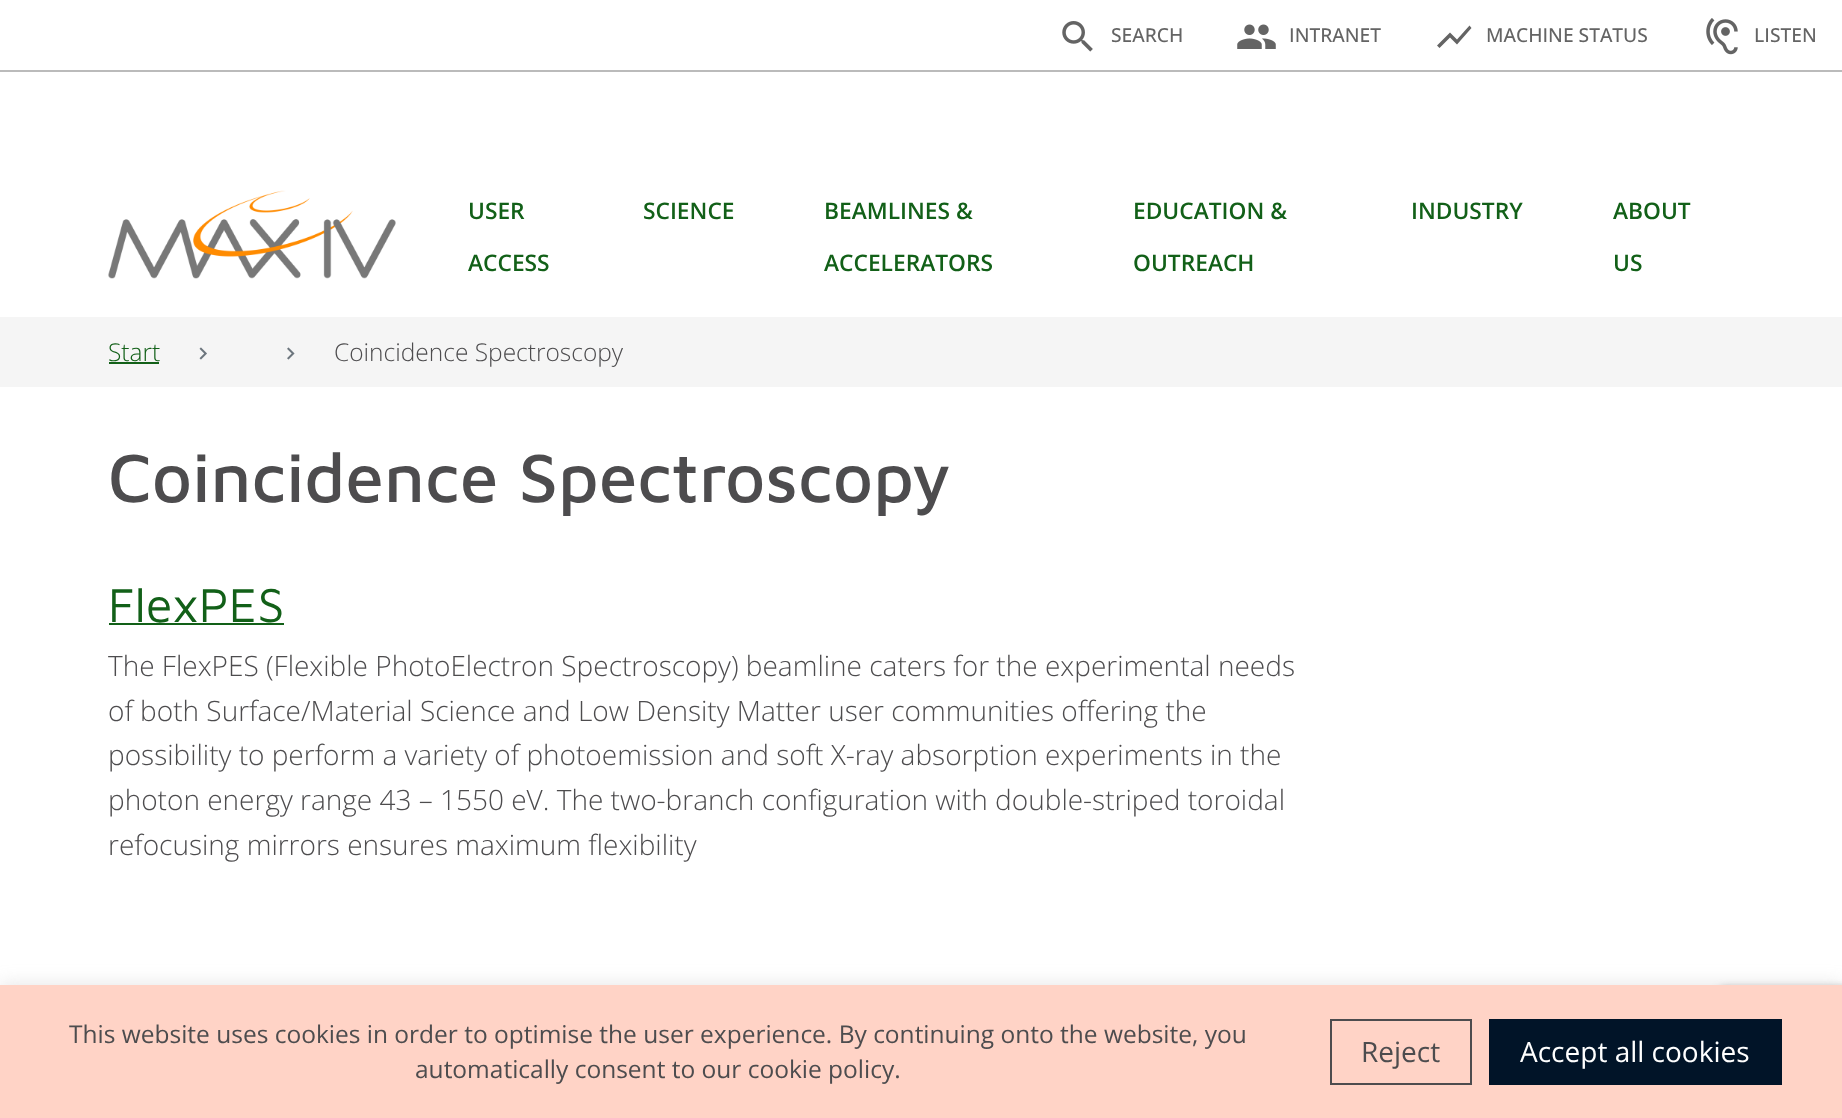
<!DOCTYPE html>
<meta charset="utf-8">
<style>body { margin: 0 } canvas { display: block }</style>
<canvas id="canvas" width="1842" height="1118"></canvas>
<script type="module">
  const canvas = document.getElementById("canvas");
  const g = canvas.getContext("2d");
  g.miterLimit = 4;
  g.fontKerning = "normal";
  function drawText(s, x, y, [font, color]) {
    g.font = font;
    g.fillStyle = color;
    g.fillText(s, x, y);
  }
  function fillBox(x, y, w, h, color) {
    g.fillStyle = color;
    g.fillRect(x, y, w, h);
  }
  async function drawPicture(src, x, y, w, h) {
    const img = new Image();
    img.src = src;
    await img.decode();
    g.drawImage(img, x, y, w, h);
  }

  const s1 = ["500 19.25px Open Sans", "#646464"];
  const s2 = ["600 22.75px Open Sans", "#126018"];
  const s3 = ["300 24.5px Open Sans", "#126018"];
  const s4 = ["300 24.5px Open Sans", "#4D4C4E"];
  const s5 = ["500 70px Maven Pro", "#4D4C4E"];
  const s6 = ["49px Maven Pro", "#126018"];
  const s7 = ["300 28px Open Sans", "#4D4C4E"];
  const s8 = ["24.5px Open Sans", "#4D4C4E"];
  const s9 = ["28px Open Sans", "#4D4C4E"];
  const s10 = ["28px Open Sans", "#FFFFFF"];

  fillBox(0, 0, 1842, 1118, "#FFFFFF");
  fillBox(0, 70, 1842, 2, "#BBBBBB");
  await drawPicture("pic1.png", 1062, 21, 31, 31);
  drawText("SEARCH", 1111, 42, s1);
  await drawPicture("pic2.png", 1237, 24, 39, 25);
  drawText("INTRANET", 1289, 42, s1);
  g.beginPath();
  g.moveTo(1439.5, 48);
  g.lineTo(1450, 37.5);
  g.lineTo(1457, 44.5);
  g.lineTo(1471.5, 28);
  g.lineTo(1469.5, 25.5);
  g.lineTo(1457, 39.5);
  g.lineTo(1450, 32.5);
  g.lineTo(1437, 45.5);
  g.closePath();
  g.fill();
  drawText("MACHINE STATUS", 1486, 42, s1);
  await drawPicture("pic3.png", 1706, 18, 32, 37);
  drawText("LISTEN", 1754, 42, s1);
  await drawPicture("pic4.png", 108, 190, 288, 89);
  drawText("USER", 468, 219, s2);
  drawText("ACCESS", 468, 271, s2);
  drawText("SCIENCE", 643, 219, s2);
  drawText("BEAMLINES &", 824, 219, s2);
  drawText("ACCELERATORS", 824, 271, s2);
  drawText("EDUCATION &", 1133, 219, s2);
  drawText("OUTREACH", 1133, 271, s2);
  drawText("INDUSTRY", 1411, 219, s2);
  drawText("ABOUT", 1613, 219, s2);
  drawText("US", 1613, 271, s2);
  fillBox(0, 317, 1842, 70, "#F5F5F5");
  drawText("Start", 108, 361, s3);
  fillBox(109, 362, 50, 2, "#126018");
  await drawPicture("pic5.png", 199, 347, 8, 13);
  await drawPicture("pic6.png", 287, 347, 8, 13);
  drawText("Coincidence Spectroscopy", 334, 361, s4);
  drawText("Coincidence Spectroscopy", 108, 502, s5);
  drawText("FlexPES", 108, 622, s6);
  fillBox(109, 623, 175, 2, "#126018");
  drawText("The FlexPES (Flexible PhotoElectron Spectroscopy) beamline caters for the experimental needs", 108, 676, s7);
  drawText("of both Surface/Material Science and Low Density Matter user communities offering the", 108, 721, s7);
  drawText("possibility to perform a variety of photoemission and soft X-ray absorption experiments in the", 108, 765, s7);
  drawText("photon energy range 43 – 1550 eV. The two-branch configuration with double-striped toroidal", 108, 810, s7);
  drawText("refocusing mirrors ensures maximum flexibility", 108, 855, s7);
  g.fillStyle = "rgba(172, 171, 171, 0.3)";
  g.filter = "blur(9px)";
  g.beginPath();
  g.rect(0, 984, 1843, 133);
  g.fill();
  g.filter = "none";
  g.fillStyle = "#808080";
  g.filter = "blur(4.5px)";
  g.beginPath();
  g.roundRect(1720, 989, 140, 105, 4);
  g.fill();
  g.filter = "none";
  fillBox(0, 985, 1842, 133, "#FFD3C6");
  drawText("This website uses cookies in order to optimise the user experience. By continuing onto the website, you", 69, 1043, s8);
  drawText("automatically consent to our cookie policy.", 415, 1078, s8);
  g.strokeStyle = "#4D4C4E";
  g.lineWidth = 2;
  g.strokeRect(1331, 1020, 140, 64);
  drawText("Reject", 1361, 1062, s9);
  fillBox(1489, 1019, 293, 66, "#011428");
  drawText("Accept all cookies", 1520, 1062, s10);
</script>
